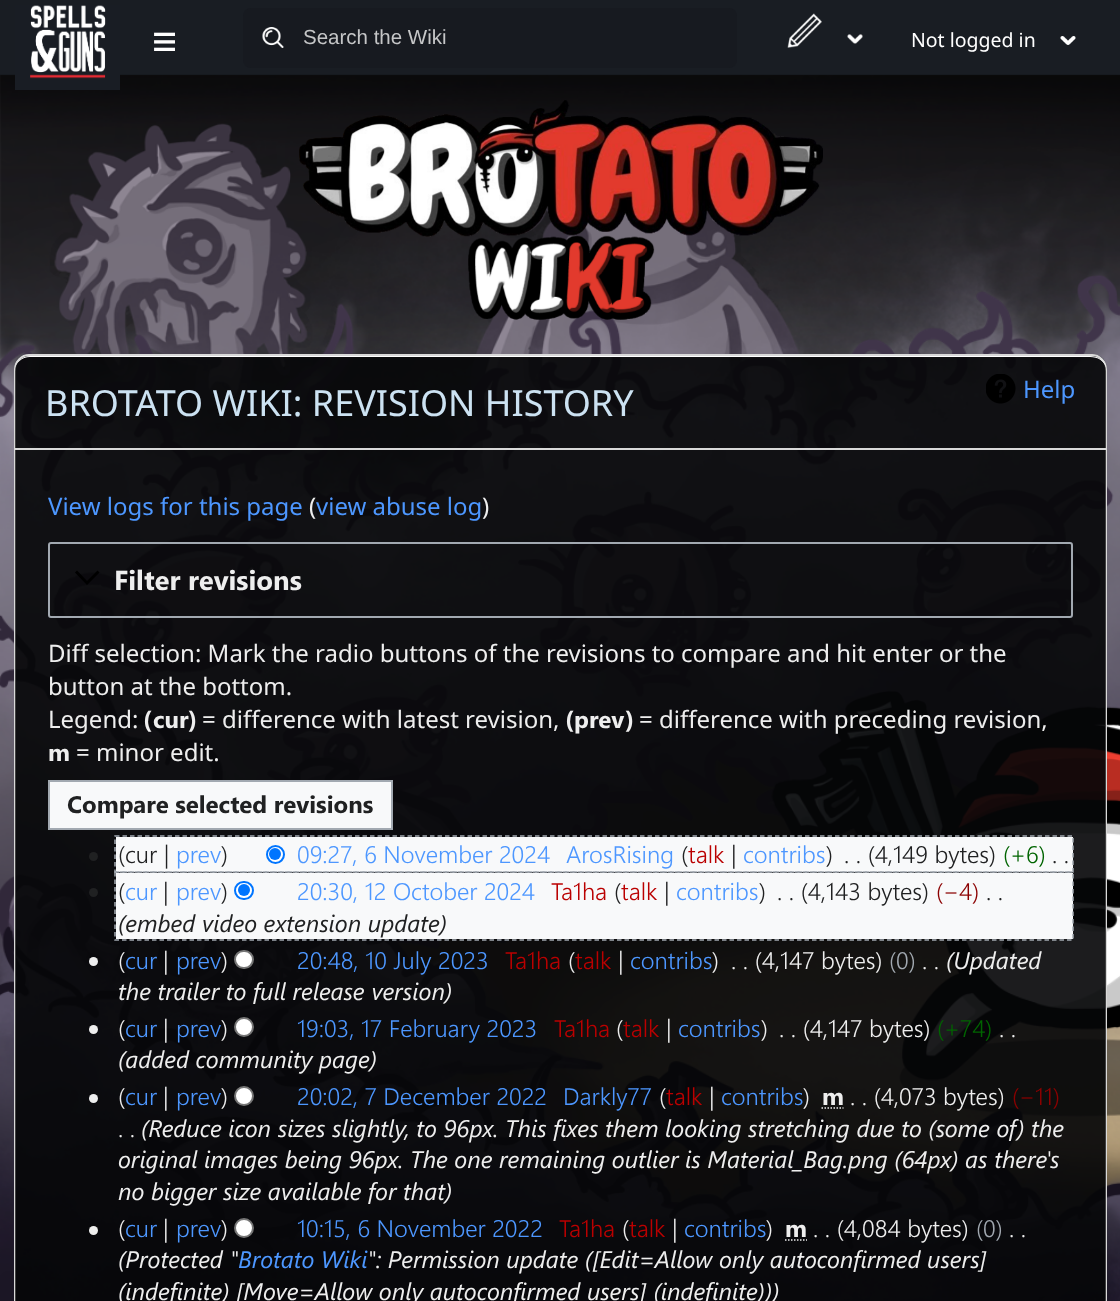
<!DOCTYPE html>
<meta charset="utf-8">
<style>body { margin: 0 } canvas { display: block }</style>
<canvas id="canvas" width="1120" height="1301"></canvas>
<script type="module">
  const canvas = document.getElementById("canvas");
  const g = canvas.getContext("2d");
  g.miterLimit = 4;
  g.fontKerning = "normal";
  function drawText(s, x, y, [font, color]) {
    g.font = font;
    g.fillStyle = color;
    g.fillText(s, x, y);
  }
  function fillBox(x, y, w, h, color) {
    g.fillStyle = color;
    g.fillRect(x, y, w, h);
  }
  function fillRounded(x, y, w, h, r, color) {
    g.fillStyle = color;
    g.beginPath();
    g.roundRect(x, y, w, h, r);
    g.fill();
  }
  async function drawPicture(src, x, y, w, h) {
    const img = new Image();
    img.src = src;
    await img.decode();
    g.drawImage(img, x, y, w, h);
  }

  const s1 = ["bold 43px Liberation Sans", "#FFFFFF"];
  const s2 = ["20.5px Liberation Sans", "#C5C6C7"];
  const s3 = ["19.5px Noto Sans", "#FFFFFF"];
  const s4 = ["36px Noto Sans", "#CCE2F2"];
  const s5 = ["24px Noto Sans", "#4D97FF"];
  const s6 = ["24px Noto Sans", "#EEEEEE"];
  const s7 = ["bold 27.5px Segoe UI", "#EEEEEE"];
  const s8 = ["bold 24px Noto Sans", "#EEEEEE"];
  const s9 = ["bold 24px Segoe UI", "#EEEEEE"];
  const s10 = ["bold 24px Segoe UI", "#202122"];
  const s11 = ["300 24px Segoe UI", "#202122"];
  const s12 = ["300 24px Segoe UI", "#4D97FF"];
  const s13 = ["300 24px Segoe UI", "#BA0000"];
  const s14 = ["300 24px Segoe UI", "#006400"];
  const s15 = ["300 24px Segoe UI", "#8B0000"];
  const s16 = ["italic 24px Segoe UI", "#202122"];
  const s17 = ["300 24px Segoe UI", "#EEEEEE"];
  const s18 = ["300 24px Segoe UI", "#A2A9B1"];
  const s19 = ["italic 24px Segoe UI", "#EEEEEE"];
  const s20 = ["italic 24px Segoe UI", "#4D97FF"];

  fillBox(0, 0, 1120, 1301, "#191D23");
  fillBox(0, 74, 1120, 1, "rgba(0, 0, 0, 0.1)");
  await drawPicture("pic6.png", 0, 75, 1120, 1226);
  await drawPicture("pic1.png", 15, 5, 105, 85);
  drawText("≡", 152, 56, s1);
  fillRounded(243, 8, 494, 60, 8, "#171A20");
  await drawPicture("pic2.png", 262, 27, 22, 21);
  drawText("Search the Wiki", 303, 44, s2);
  await drawPicture("pic3.png", 787, 13, 35, 35);
  await drawPicture("pic4.png", 847, 34, 16, 10);
  drawText("Not logged in", 911, 47, s3);
  await drawPicture("pic5.png", 1060, 36, 16, 9);
  await drawPicture("pic7.png", 299, 100, 524, 220);
  g.fillStyle = "rgba(25, 29, 36, 0.7)";
  g.beginPath();
  g.moveTo(29, 354);
  g.lineTo(1092, 354);
  g.bezierCurveTo(1100.5, 354, 1107, 360.5, 1107, 369);
  g.lineTo(1107, 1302);
  g.lineTo(14, 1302);
  g.lineTo(14, 369);
  g.bezierCurveTo(14, 360.5, 20.5, 354, 29, 354);
  g.closePath();
  g.fill();
  g.beginPath();
  g.moveTo(29, 355);
  g.lineTo(1092, 355);
  g.bezierCurveTo(1099.5, 355, 1106, 361.5, 1106, 369);
  g.lineTo(1106, 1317);
  g.lineTo(15, 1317);
  g.lineTo(15, 369);
  g.bezierCurveTo(15, 361.5, 21.5, 355, 29, 355);
  g.closePath();
  g.strokeStyle = "#D9D9D9";
  g.lineWidth = 2;
  g.stroke();
  g.fillStyle = "rgba(0, 0, 0, 0.7)";
  g.beginPath();
  g.roundRect(15, 356, 1091, 94, [15, 15, 0, 0]);
  g.fill();
  g.fillStyle = "#FFFFFF";
  g.beginPath();
  g.moveTo(30, 356);
  g.lineTo(1090, 356);
  g.bezierCurveTo(1098, 356, 1104, 360, 1106, 366);
  g.lineTo(1106, 367);
  g.bezierCurveTo(1104, 361, 1098, 357, 1090, 357);
  g.lineTo(30, 357);
  g.bezierCurveTo(22, 357, 15, 363, 15, 370);
  g.bezierCurveTo(15, 362, 22, 356, 30, 356);
  g.closePath();
  g.fill();
  fillBox(15, 448, 1091, 2, "#D9D9D9");
  drawText("BROTATO WIKI: REVISION HISTORY", 45, 416, s4);
  await drawPicture("pic8.png", 986, 374, 30, 30);
  drawText("Help", 1023, 398, s5);
  fillBox(15, 450, 1091, 851, "rgba(0, 0, 0, 0.7)");
  drawText("View logs for this page", 48, 515, s5);
  drawText("(", 309, 515, s6);
  drawText("view abuse log", 316, 515, s5);
  drawText(")", 482, 515, s6);
  g.beginPath();
  g.roundRect(49, 543, 1023, 74, 2);
  g.strokeStyle = "#A2A9B1";
  g.stroke();
  g.fillStyle = "#000000";
  g.beginPath();
  g.moveTo(97.5, 570.5);
  g.lineTo(87, 581);
  g.lineTo(77, 570.5);
  g.lineTo(75, 572.5);
  g.lineTo(87, 585);
  g.lineTo(99.5, 572.5);
  g.closePath();
  g.fill();
  drawText("Filter revisions", 114, 590, s7);
  drawText("Diff selection: Mark the radio buttons of the revisions to compare and hit enter or the", 48, 662, s6);
  drawText("button at the bottom.", 48, 695, s6);
  drawText("Legend:", 48, 728, s6);
  drawText("(", 144, 728, s8);
  drawText("cur", 153, 728, s9);
  drawText(")", 188, 728, s8);
  drawText("= difference with latest revision,", 202, 728, s6);
  drawText("(", 566, 728, s8);
  drawText("prev", 574, 728, s9);
  drawText(")", 625, 728, s8);
  drawText("= difference with preceding revision,", 639, 728, s6);
  drawText("m", 48, 761, s9);
  drawText("= minor edit.", 76, 761, s6);
  g.fillStyle = "#F8F9FA";
  g.beginPath();
  g.rect(49, 781, 343, 48);
  g.fill();
  g.stroke();
  drawText("Compare selected revisions", 67, 813, s10);
  fillBox(116, 837, 957, 35, "#F8F9FA");
  drawText("(cur |", 118, 863, s11);
  drawText("prev", 176, 863, s12);
  drawText(")", 221, 863, s11);
  g.fillStyle = "#FFFFFF";
  g.beginPath();
  g.arc(275.5, 854.5, 8.5, 0, Math.PI * 2);
  g.fill();
  g.strokeStyle = "#0075FF";
  g.stroke();
  g.fillStyle = "#0075FF";
  g.beginPath();
  g.arc(275, 854, 6, 0, Math.PI * 2);
  g.fill();
  drawText("09:27, 6 November 2024", 297, 863, s12);
  drawText("ArosRising", 566, 863, s12);
  drawText("(", 681, 863, s11);
  drawText("talk", 688, 863, s13);
  drawText("|", 731, 863, s11);
  drawText("contribs", 743, 863, s12);
  drawText(")", 826, 863, s11);
  drawText(". . (4,149 bytes)", 844, 863, s11);
  drawText("(+6)", 1003, 863, s14);
  drawText(". .", 1052, 863, s11);
  g.beginPath();
  g.moveTo(115, 836);
  g.lineTo(1073, 836);
  g.lineTo(1073, 872);
  g.lineTo(115, 872);
  g.closePath();
  g.strokeStyle = "#A2A9B1";
  g.lineWidth = 1.5;
  g.setLineDash([4.5, 3]);
  g.stroke();
  g.beginPath();
  g.arc(93.5, 856.5, 4.5, 0, Math.PI * 2);
  g.fill();
  fillBox(116, 873, 957, 66, "#F8F9FA");
  drawText("(", 118, 900, s11);
  drawText("cur", 125, 900, s12);
  drawText("|", 163, 900, s11);
  drawText("prev", 176, 900, s12);
  drawText(")", 221, 900, s11);
  g.fillStyle = "#FFFFFF";
  g.beginPath();
  g.roundRect(235, 882, 18, 17, 8.5);
  g.fill();
  g.strokeStyle = "#0075FF";
  g.lineWidth = 2;
  g.setLineDash([]);
  g.stroke();
  g.fillStyle = "#0075FF";
  g.beginPath();
  g.arc(244, 890, 6, 0, Math.PI * 2);
  g.fill();
  drawText("20:30, 12 October 2024", 297, 900, s12);
  drawText("Ta1ha", 551, 900, s13);
  drawText("(", 614, 900, s11);
  drawText("talk", 621, 900, s13);
  drawText("|", 664, 900, s11);
  drawText("contribs", 676, 900, s12);
  drawText(")", 759, 900, s11);
  drawText(". . (4,143 bytes)", 777, 900, s11);
  drawText("(−4)", 936, 900, s15);
  drawText(". .", 986, 900, s11);
  drawText("(embed video extension update)", 118, 932, s16);
  g.beginPath();
  g.moveTo(115, 872);
  g.lineTo(1073, 872);
  g.lineTo(1073, 940);
  g.lineTo(115, 940);
  g.closePath();
  g.strokeStyle = "#A2A9B1";
  g.lineWidth = 1.5;
  g.setLineDash([4.5, 3]);
  g.stroke();
  g.beginPath();
  g.arc(93.5, 892.5, 4.5, 0, Math.PI * 2);
  g.fill();
  g.fillStyle = "#EEEEEE";
  g.beginPath();
  g.arc(93.5, 961.5, 4.5, 0, Math.PI * 2);
  g.fill();
  drawText("(", 118, 969, s17);
  drawText("cur", 125, 969, s12);
  drawText("|", 163, 969, s17);
  drawText("prev", 176, 969, s12);
  drawText(")", 221, 969, s17);
  g.fillStyle = "#FFFFFF";
  g.beginPath();
  g.roundRect(235, 951, 18, 17, 8.5);
  g.fill();
  g.strokeStyle = "#767676";
  g.lineWidth = 2;
  g.setLineDash([]);
  g.stroke();
  drawText("20:48, 10 July 2023", 297, 969, s12);
  drawText("Ta1ha", 505, 969, s13);
  drawText("(", 568, 969, s17);
  drawText("talk", 575, 969, s13);
  drawText("|", 618, 969, s17);
  drawText("contribs", 630, 969, s12);
  drawText(")", 712, 969, s17);
  drawText(". . (4,147 bytes)", 731, 969, s17);
  drawText("(0)", 889, 969, s18);
  drawText("(Updated", 946, 969, s19);
  drawText(". .", 922, 969, s17);
  drawText("the trailer to full release version)", 118, 1000, s19);
  g.beginPath();
  g.arc(93.5, 1029.5, 4.5, 0, Math.PI * 2);
  g.fill();
  drawText("(", 118, 1037, s17);
  drawText("cur", 125, 1037, s12);
  drawText("|", 163, 1037, s17);
  drawText("prev", 176, 1037, s12);
  drawText(")", 221, 1037, s17);
  g.fillStyle = "#FFFFFF";
  g.beginPath();
  g.arc(244, 1027, 9, 0, Math.PI * 2);
  g.fill();
  g.stroke();
  drawText("19:03, 17 February 2023", 297, 1037, s12);
  drawText("Ta1ha", 554, 1037, s13);
  drawText("(", 616, 1037, s17);
  drawText("talk", 623, 1037, s13);
  drawText("|", 666, 1037, s17);
  drawText("contribs", 678, 1037, s12);
  drawText(")", 761, 1037, s17);
  drawText(". . (4,147 bytes)", 779, 1037, s17);
  drawText("(+74)", 937, 1037, s14);
  drawText(". .", 999, 1037, s17);
  drawText("(added community page)", 118, 1068, s19);
  g.beginPath();
  g.arc(93.5, 1098.5, 4.5, 0, Math.PI * 2);
  g.fill();
  drawText("(", 118, 1105, s17);
  drawText("cur", 125, 1105, s12);
  drawText("|", 163, 1105, s17);
  drawText("prev", 176, 1105, s12);
  drawText(")", 221, 1105, s17);
  g.fillStyle = "#FFFFFF";
  g.beginPath();
  g.arc(244, 1096, 9, 0, Math.PI * 2);
  g.fill();
  g.stroke();
  drawText("20:02, 7 December 2022", 297, 1105, s12);
  drawText("Darkly77", 563, 1105, s12);
  drawText("(", 659, 1105, s17);
  drawText("talk", 666, 1105, s13);
  drawText("|", 709, 1105, s17);
  drawText("contribs", 721, 1105, s12);
  drawText(")", 803, 1105, s17);
  drawText("m", 822, 1105, s9);
  g.beginPath();
  g.moveTo(821.5, 1108);
  g.lineTo(843.5, 1108);
  g.strokeStyle = "#EEEEEE";
  g.lineWidth = 1.5;
  g.setLineDash([1.5, 1.5]);
  g.stroke();
  drawText(". . (4,073 bytes)", 850, 1105, s17);
  drawText("(−11)", 1012, 1105, s15);
  drawText(". .", 118, 1137, s17);
  drawText("(Reduce icon sizes slightly, to 96px. This fixes them looking stretching due to (some of) the", 141, 1137, s19);
  drawText("original images being 96px. The one remaining outlier is Material_Bag.png (64px) as there's", 118, 1168, s19);
  drawText("no bigger size available for that)", 118, 1200, s19);
  g.beginPath();
  g.arc(93.5, 1230.5, 4.5, 0, Math.PI * 2);
  g.fill();
  drawText("(", 118, 1237, s17);
  drawText("cur", 125, 1237, s12);
  drawText("|", 163, 1237, s17);
  drawText("prev", 176, 1237, s12);
  drawText(")", 221, 1237, s17);
  g.fillStyle = "#FFFFFF";
  g.beginPath();
  g.arc(244, 1228, 9, 0, Math.PI * 2);
  g.fill();
  g.strokeStyle = "#767676";
  g.lineWidth = 2;
  g.setLineDash([]);
  g.stroke();
  drawText("10:15, 6 November 2022", 297, 1237, s12);
  drawText("Ta1ha", 559, 1237, s13);
  drawText("(", 622, 1237, s17);
  drawText("talk", 629, 1237, s13);
  drawText("|", 672, 1237, s17);
  drawText("contribs", 684, 1237, s12);
  drawText(")", 766, 1237, s17);
  drawText("m", 785, 1237, s9);
  g.beginPath();
  g.moveTo(785, 1240);
  g.lineTo(807, 1240);
  g.strokeStyle = "#EEEEEE";
  g.lineWidth = 1.5;
  g.setLineDash([1.5, 1.5]);
  g.stroke();
  drawText(". . (4,084 bytes)", 813, 1237, s17);
  drawText("(0)", 976, 1237, s18);
  drawText(". .", 1009, 1237, s17);
  drawText("(Protected \"", 118, 1268, s19);
  drawText("Brotato Wiki", 238, 1268, s20);
  drawText("\": Permission update ([Edit=Allow only autoconfirmed users]", 367, 1268, s19);
  drawText("(indefinite) [Move=Allow only autoconfirmed users] (indefinite)))", 118, 1300, s19);
</script>
